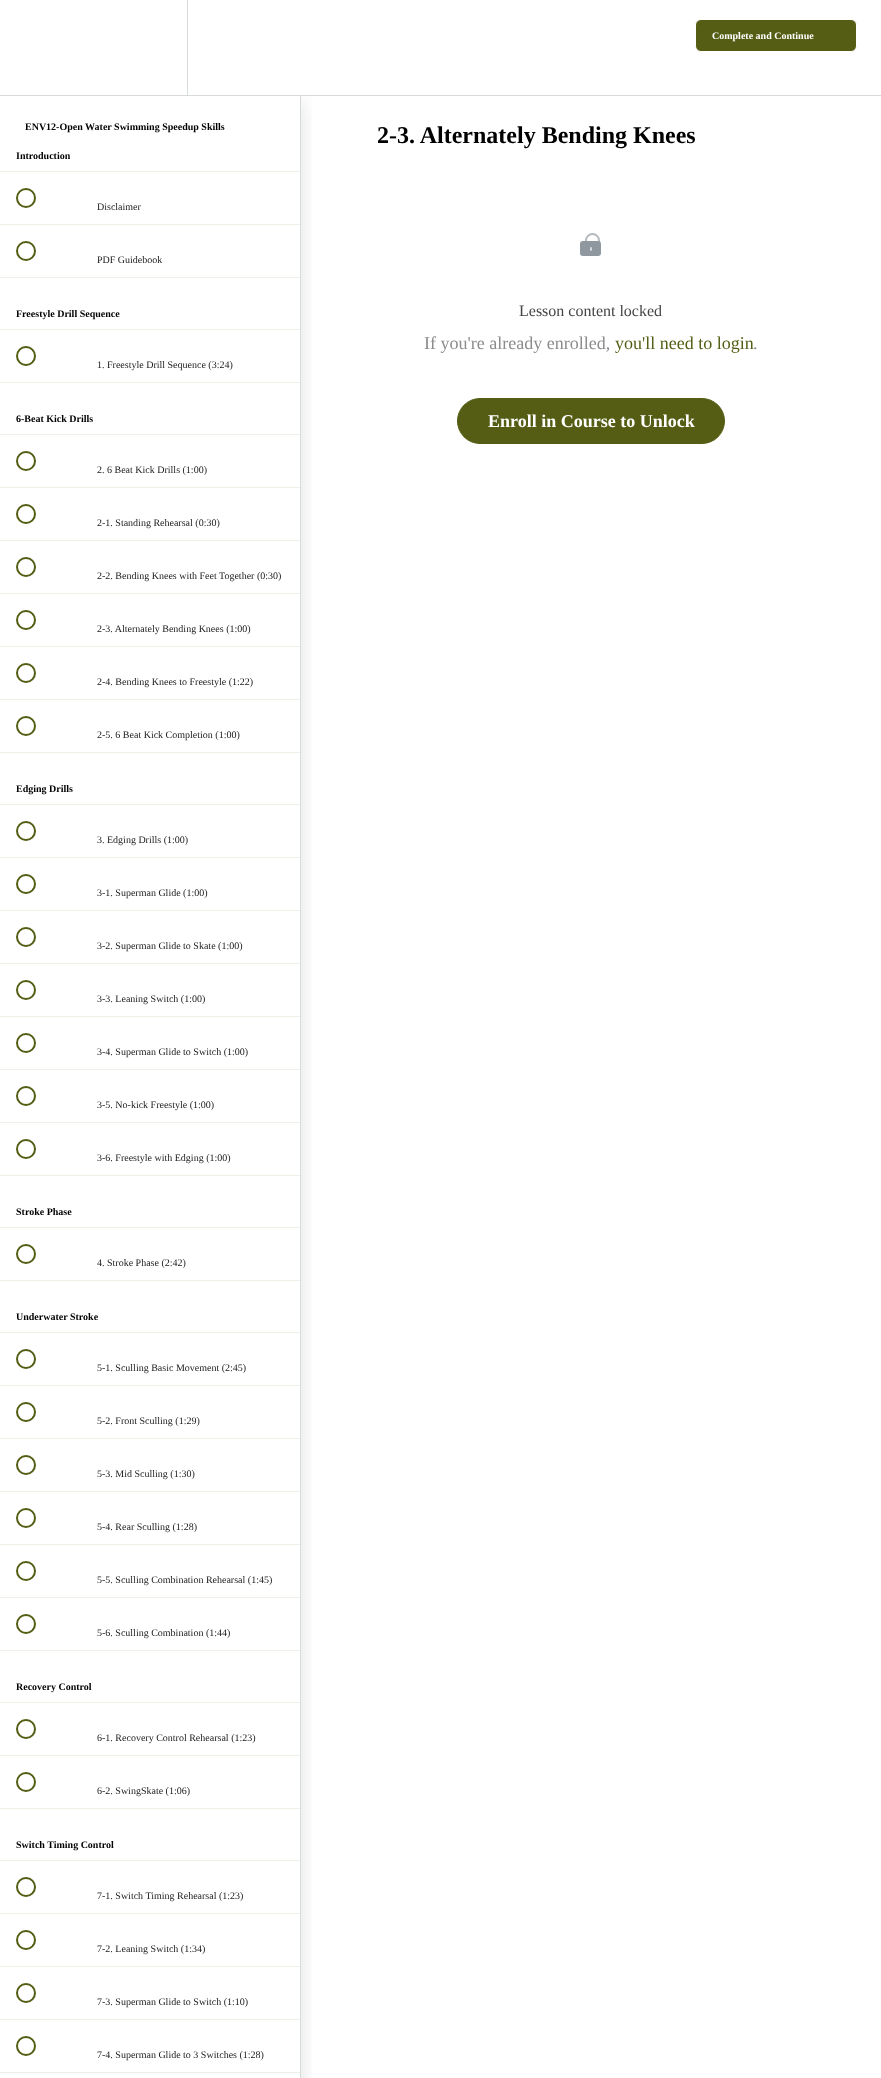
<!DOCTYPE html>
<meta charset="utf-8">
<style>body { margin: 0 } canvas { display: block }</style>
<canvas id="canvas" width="881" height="2078"></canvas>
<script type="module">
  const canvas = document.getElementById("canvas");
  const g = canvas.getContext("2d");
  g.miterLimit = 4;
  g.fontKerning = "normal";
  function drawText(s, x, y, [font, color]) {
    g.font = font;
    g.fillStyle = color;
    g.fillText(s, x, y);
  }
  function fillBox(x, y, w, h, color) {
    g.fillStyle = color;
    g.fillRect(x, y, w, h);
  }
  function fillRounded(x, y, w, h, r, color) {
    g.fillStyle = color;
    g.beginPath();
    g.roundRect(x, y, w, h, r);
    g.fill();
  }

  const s1 = ["bold 10px Liberation Serif", "#FFFFFF"];
  const s2 = ["bold 10px Liberation Serif", "#000000"];
  const s3 = ["10px Liberation Serif", "#1A1A1A"];
  const s4 = ["bold 24px Liberation Serif", "#000000"];
  const s5 = ["16px Liberation Serif", "#454545"];
  const s6 = ["18px Liberation Serif", "#8B8B8B"];
  const s7 = ["18px Liberation Serif", "#545D13"];
  const s8 = ["bold 18px Liberation Serif", "#FFFFFF"];

  fillBox(0, 0, 881, 2078, "#FFFFFF");
  g.save();
  g.beginPath();
  g.rect(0, 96, 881, 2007);
  g.clip();
  g.beginPath();
  g.rect(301, 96, 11, 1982);
  g.clip();
  g.fillStyle = "rgba(32, 39, 45, 0.15)";
  g.filter = "blur(10px)";
  g.beginPath();
  g.rect(0, 102, 301, 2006);
  g.fill();
  g.filter = "none";
  g.restore();
  fillBox(0, 95, 881, 1, "#D7DADB");
  fillBox(187, 0, 1, 95, "#D7DADB");
  g.fillStyle = "#545D13";
  g.beginPath();
  g.roundRect(695.5, 19.5, 161, 32, 5.5);
  g.fill();
  g.strokeStyle = "#FFFFFF";
  g.stroke();
  drawText("Complete and Continue", 712, 39, s1);
  fillBox(300, 96, 1, 1982, "#D7DADB");
  drawText("ENV12-Open Water Swimming Speedup Skills", 25, 130, s2);
  fillBox(0, 171, 300, 1, "#EEEFE7");
  drawText("Introduction", 16, 159, s2);
  fillBox(0, 224, 300, 1, "#EEEFE7");
  g.beginPath();
  g.arc(26, 198, 9, 0, Math.PI * 2);
  g.strokeStyle = "#545D13";
  g.lineWidth = 2;
  g.stroke();
  drawText("Disclaimer", 97, 210, s3);
  fillBox(0, 277, 300, 1, "#EEEFE7");
  g.beginPath();
  g.arc(26, 251, 9, 0, Math.PI * 2);
  g.stroke();
  drawText("PDF Guidebook", 97, 263, s3);
  fillBox(0, 329, 300, 1, "#EEEFE7");
  drawText("Freestyle Drill Sequence", 16, 317, s2);
  fillBox(0, 382, 300, 1, "#EEEFE7");
  g.beginPath();
  g.arc(26, 356, 9, 0, Math.PI * 2);
  g.stroke();
  drawText("1. Freestyle Drill Sequence (3:24)", 97, 368, s3);
  fillBox(0, 434, 300, 1, "#EEEFE7");
  drawText("6-Beat Kick Drills", 16, 422, s2);
  fillBox(0, 487, 300, 1, "#EEEFE7");
  g.beginPath();
  g.arc(26, 461, 9, 0, Math.PI * 2);
  g.stroke();
  drawText("2. 6 Beat Kick Drills (1:00)", 97, 473, s3);
  fillBox(0, 540, 300, 1, "#EEEFE7");
  g.beginPath();
  g.arc(26, 514, 9, 0, Math.PI * 2);
  g.stroke();
  drawText("2-1. Standing Rehearsal (0:30)", 97, 526, s3);
  fillBox(0, 593, 300, 1, "#EEEFE7");
  g.beginPath();
  g.arc(26, 567, 9, 0, Math.PI * 2);
  g.stroke();
  drawText("2-2. Bending Knees with Feet Together (0:30)", 97, 579, s3);
  fillBox(0, 646, 300, 1, "#EEEFE7");
  g.beginPath();
  g.arc(26, 620, 9, 0, Math.PI * 2);
  g.stroke();
  drawText("2-3. Alternately Bending Knees (1:00)", 97, 632, s3);
  fillBox(0, 699, 300, 1, "#EEEFE7");
  g.beginPath();
  g.arc(26, 673, 9, 0, Math.PI * 2);
  g.stroke();
  drawText("2-4. Bending Knees to Freestyle (1:22)", 97, 685, s3);
  fillBox(0, 752, 300, 1, "#EEEFE7");
  g.beginPath();
  g.arc(26, 726, 9, 0, Math.PI * 2);
  g.stroke();
  drawText("2-5. 6 Beat Kick Completion (1:00)", 97, 738, s3);
  fillBox(0, 804, 300, 1, "#EEEFE7");
  drawText("Edging Drills", 16, 792, s2);
  fillBox(0, 857, 300, 1, "#EEEFE7");
  g.beginPath();
  g.arc(26, 831, 9, 0, Math.PI * 2);
  g.stroke();
  drawText("3. Edging Drills (1:00)", 97, 843, s3);
  fillBox(0, 910, 300, 1, "#EEEFE7");
  g.beginPath();
  g.arc(26, 884, 9, 0, Math.PI * 2);
  g.stroke();
  drawText("3-1. Superman Glide (1:00)", 97, 896, s3);
  fillBox(0, 963, 300, 1, "#EEEFE7");
  g.beginPath();
  g.arc(26, 937, 9, 0, Math.PI * 2);
  g.stroke();
  drawText("3-2. Superman Glide to Skate (1:00)", 97, 949, s3);
  fillBox(0, 1016, 300, 1, "#EEEFE7");
  g.beginPath();
  g.arc(26, 990, 9, 0, Math.PI * 2);
  g.stroke();
  drawText("3-3. Leaning Switch (1:00)", 97, 1002, s3);
  fillBox(0, 1069, 300, 1, "#EEEFE7");
  g.beginPath();
  g.arc(26, 1043, 9, 0, Math.PI * 2);
  g.stroke();
  drawText("3-4. Superman Glide to Switch (1:00)", 97, 1055, s3);
  fillBox(0, 1122, 300, 1, "#EEEFE7");
  g.beginPath();
  g.arc(26, 1096, 9, 0, Math.PI * 2);
  g.stroke();
  drawText("3-5. No-kick Freestyle (1:00)", 97, 1108, s3);
  fillBox(0, 1175, 300, 1, "#EEEFE7");
  g.beginPath();
  g.arc(26, 1149, 9, 0, Math.PI * 2);
  g.stroke();
  drawText("3-6. Freestyle with Edging (1:00)", 97, 1161, s3);
  fillBox(0, 1227, 300, 1, "#EEEFE7");
  drawText("Stroke Phase", 16, 1215, s2);
  fillBox(0, 1280, 300, 1, "#EEEFE7");
  g.beginPath();
  g.arc(26, 1254, 9, 0, Math.PI * 2);
  g.stroke();
  drawText("4. Stroke Phase (2:42)", 97, 1266, s3);
  fillBox(0, 1332, 300, 1, "#EEEFE7");
  drawText("Underwater Stroke", 16, 1320, s2);
  fillBox(0, 1385, 300, 1, "#EEEFE7");
  g.beginPath();
  g.arc(26, 1359, 9, 0, Math.PI * 2);
  g.stroke();
  drawText("5-1. Sculling Basic Movement (2:45)", 97, 1371, s3);
  fillBox(0, 1438, 300, 1, "#EEEFE7");
  g.beginPath();
  g.arc(26, 1412, 9, 0, Math.PI * 2);
  g.stroke();
  drawText("5-2. Front Sculling (1:29)", 97, 1424, s3);
  fillBox(0, 1491, 300, 1, "#EEEFE7");
  g.beginPath();
  g.arc(26, 1465, 9, 0, Math.PI * 2);
  g.stroke();
  drawText("5-3. Mid Sculling (1:30)", 97, 1477, s3);
  fillBox(0, 1544, 300, 1, "#EEEFE7");
  g.beginPath();
  g.arc(26, 1518, 9, 0, Math.PI * 2);
  g.stroke();
  drawText("5-4. Rear Sculling (1:28)", 97, 1530, s3);
  fillBox(0, 1597, 300, 1, "#EEEFE7");
  g.beginPath();
  g.arc(26, 1571, 9, 0, Math.PI * 2);
  g.stroke();
  drawText("5-5. Sculling Combination Rehearsal (1:45)", 97, 1583, s3);
  fillBox(0, 1650, 300, 1, "#EEEFE7");
  g.beginPath();
  g.arc(26, 1624, 9, 0, Math.PI * 2);
  g.stroke();
  drawText("5-6. Sculling Combination (1:44)", 97, 1636, s3);
  fillBox(0, 1702, 300, 1, "#EEEFE7");
  drawText("Recovery Control", 16, 1690, s2);
  fillBox(0, 1755, 300, 1, "#EEEFE7");
  g.beginPath();
  g.arc(26, 1729, 9, 0, Math.PI * 2);
  g.stroke();
  drawText("6-1. Recovery Control Rehearsal (1:23)", 97, 1741, s3);
  fillBox(0, 1808, 300, 1, "#EEEFE7");
  g.beginPath();
  g.arc(26, 1782, 9, 0, Math.PI * 2);
  g.stroke();
  drawText("6-2. SwingSkate (1:06)", 97, 1794, s3);
  fillBox(0, 1860, 300, 1, "#EEEFE7");
  drawText("Switch Timing Control", 16, 1848, s2);
  fillBox(0, 1913, 300, 1, "#EEEFE7");
  g.beginPath();
  g.arc(26, 1887, 9, 0, Math.PI * 2);
  g.stroke();
  drawText("7-1. Switch Timing Rehearsal (1:23)", 97, 1899, s3);
  fillBox(0, 1966, 300, 1, "#EEEFE7");
  g.beginPath();
  g.arc(26, 1940, 9, 0, Math.PI * 2);
  g.stroke();
  drawText("7-2. Leaning Switch (1:34)", 97, 1952, s3);
  fillBox(0, 2019, 300, 1, "#EEEFE7");
  g.beginPath();
  g.arc(26, 1993, 9, 0, Math.PI * 2);
  g.stroke();
  drawText("7-3. Superman Glide to Switch (1:10)", 97, 2005, s3);
  fillBox(0, 2072, 300, 1, "#EEEFE7");
  g.beginPath();
  g.arc(26, 2046, 9, 0, Math.PI * 2);
  g.stroke();
  drawText("7-4. Superman Glide to 3 Switches (1:28)", 97, 2058, s3);
  drawText("2-3. Alternately Bending Knees", 377, 143, s4);
  g.beginPath();
  g.roundRect(586, 234, 13, 20, 6.5);
  g.strokeStyle = "#B5BABF";
  g.stroke();
  fillRounded(580, 241, 21, 15, 3, "#8F989F");
  fillRounded(590, 247, 2, 4, 1, "#D3D7DC");
  drawText("Lesson content locked", 519, 316, s5);
  drawText("If you're already enrolled,", 424, 349, s6);
  drawText("you'll need to login", 615, 349, s7);
  drawText(".", 753, 349, s6);
  g.fillStyle = "#545D13";
  g.beginPath();
  g.roundRect(457.5, 398.5, 267, 45, 22.5);
  g.fill();
  g.strokeStyle = "#545D13";
  g.lineWidth = 1;
  g.stroke();
  drawText("Enroll in Course to Unlock", 488, 427, s8);
</script>
